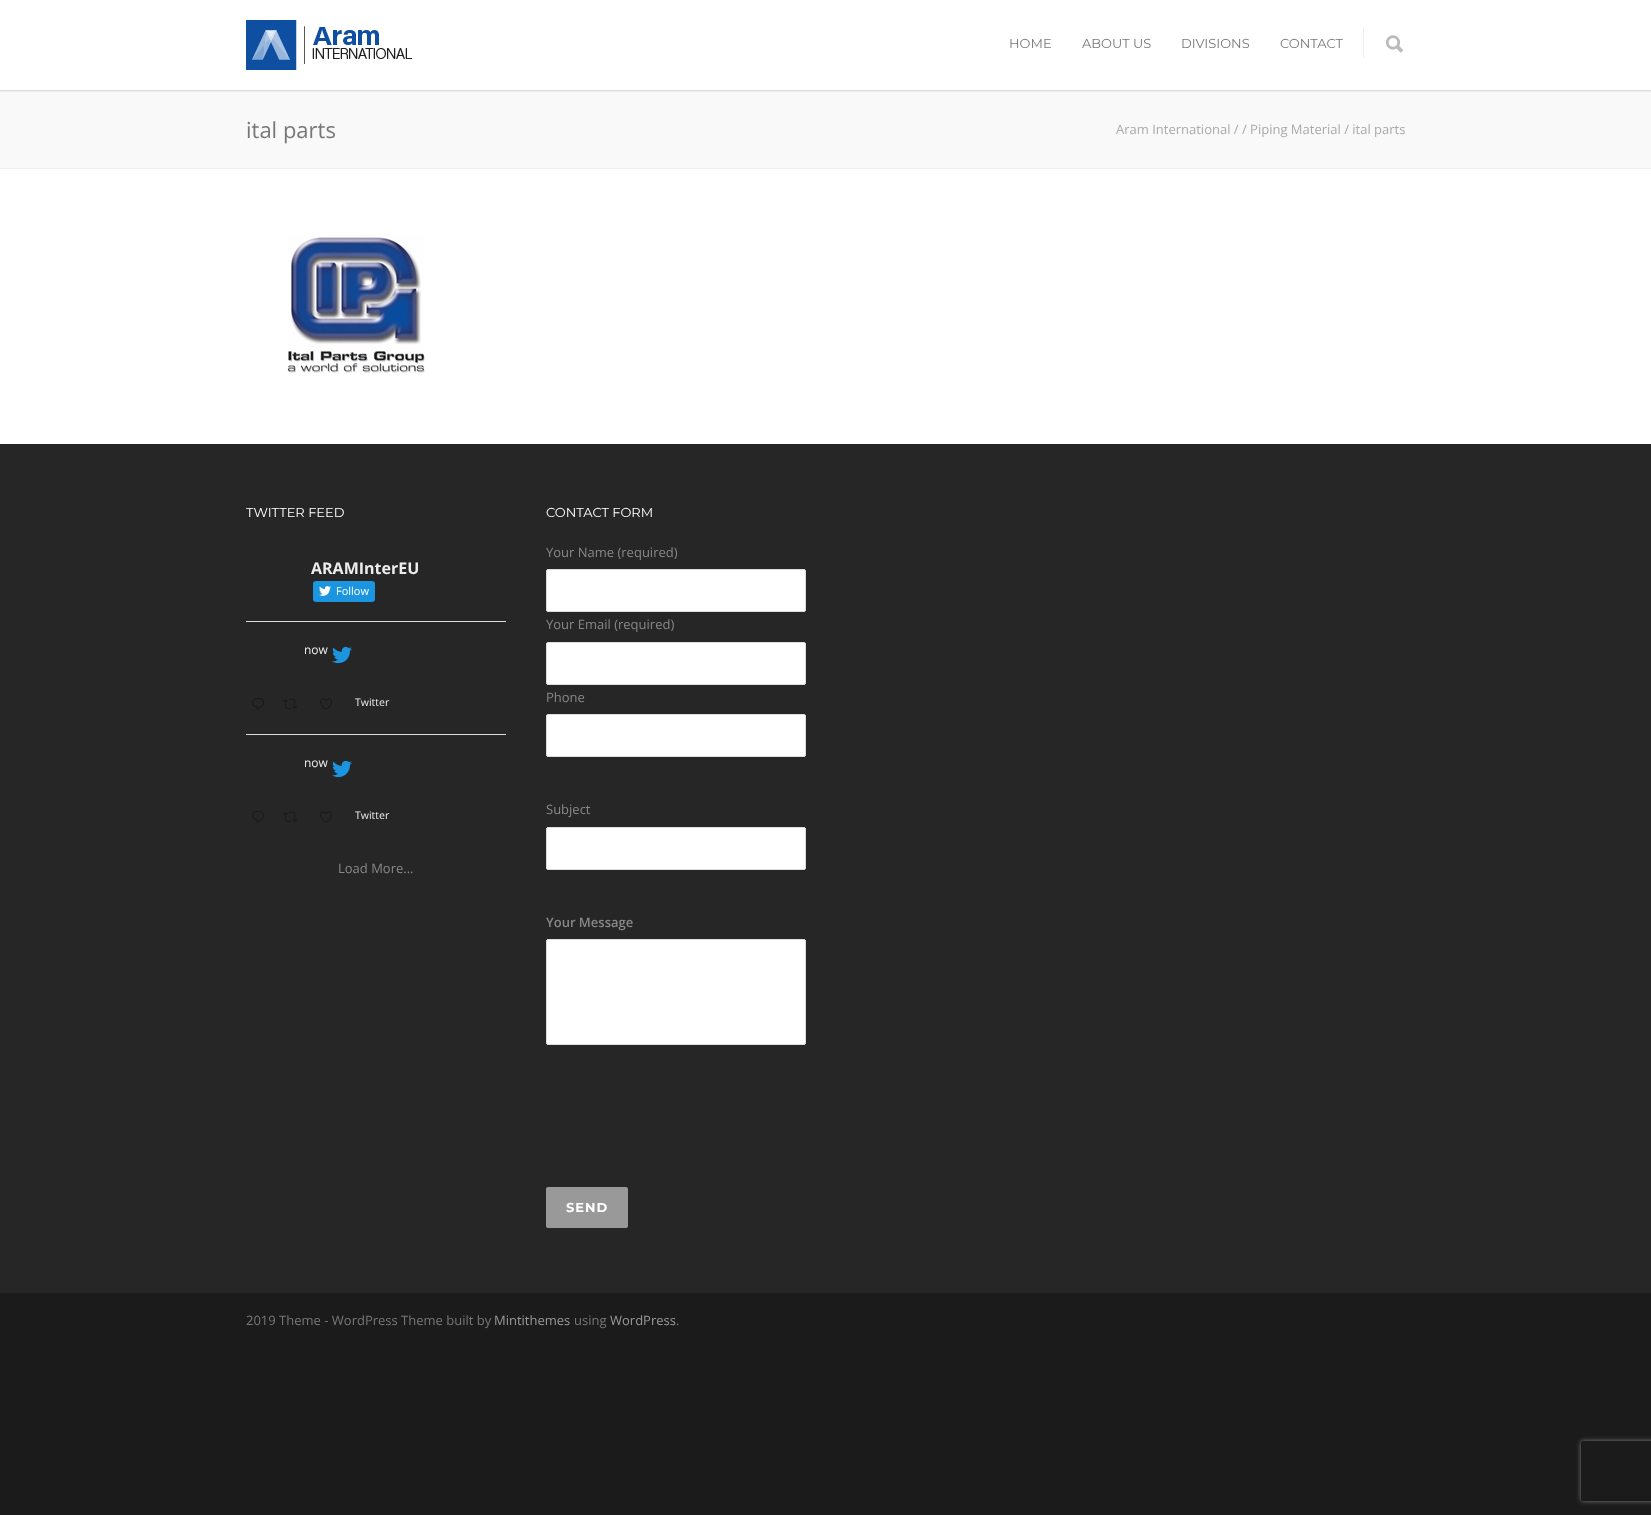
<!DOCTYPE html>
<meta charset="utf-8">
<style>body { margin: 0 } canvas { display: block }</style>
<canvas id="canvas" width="1651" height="1515"></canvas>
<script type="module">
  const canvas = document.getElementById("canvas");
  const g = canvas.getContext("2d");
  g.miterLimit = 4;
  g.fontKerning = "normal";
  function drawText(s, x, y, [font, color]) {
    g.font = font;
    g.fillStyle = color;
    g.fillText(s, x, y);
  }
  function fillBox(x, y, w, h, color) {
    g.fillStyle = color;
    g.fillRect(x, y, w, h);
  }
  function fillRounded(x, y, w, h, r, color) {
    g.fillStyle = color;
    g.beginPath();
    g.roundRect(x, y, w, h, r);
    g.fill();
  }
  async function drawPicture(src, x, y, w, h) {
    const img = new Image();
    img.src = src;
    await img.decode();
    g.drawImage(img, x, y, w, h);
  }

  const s1 = ["13px Montserrat", "#777777"];
  const s2 = ["22px Open Sans", "#777777"];
  const s3 = ["13px Open Sans", "#AAAAAA"];
  const s4 = ["13px Montserrat", "#FFFFFF"];
  const s5 = ["bold 16px Open Sans", "#EDEDED"];
  const s6 = ["11px Open Sans", "#FFFFFF"];
  const s7 = ["12px Open Sans", "#EDEDED"];
  const s8 = ["10.5px Open Sans", "#EDEDED"];
  const s9 = ["13px Open Sans", "#888888"];
  const s10 = ["600 13px Open Sans", "#888888"];
  const s11 = ["bold 13px Montserrat", "#FFFFFF"];
  const s12 = ["13px Open Sans", "#777777"];
  const s13 = ["13px Open Sans", "#999999"];

  fillBox(0, 0, 1651, 1515, "#1B1B1B");
  fillBox(0, 0, 1651, 444, "#FFFFFF");
  fillBox(0, 90, 1651, 78, "#F9F9F9");
  g.save();
  g.beginPath();
  g.rect(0, 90, 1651, 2);
  g.clip();
  g.fillStyle = "rgba(0, 0, 0, 0.16)";
  g.filter = "blur(1px)";
  g.beginPath();
  g.rect(-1, -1, 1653, 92);
  g.fill();
  g.filter = "none";
  g.restore();
  await drawPicture("pic1.png", 246, 20, 166, 50);
  drawText("HOME", 1009, 48, s1);
  drawText("ABOUT US", 1082, 48, s1);
  drawText("DIVISIONS", 1181, 48, s1);
  drawText("CONTACT", 1280, 48, s1);
  fillBox(1363, 28, 1, 30, "#EFEFEF");
  await drawPicture("pic2.png", 1385, 35, 18, 18);
  fillBox(0, 168, 1651, 1, "#EFEFEF");
  drawText("ital parts", 246, 138, s2);
  drawText("Aram International / / Piping Material / ital parts", 1116, 134, s3);
  await drawPicture("pic3.png", 287, 235, 138, 138);
  fillBox(0, 444, 1651, 849, "#262626");
  drawText("TWITTER FEED", 246, 517, s4);
  fillBox(246, 621, 260, 1, "#DDDDDD");
  drawText("ARAMInterEU", 311, 574, s5);
  fillRounded(313, 581, 62, 21, 3, "#1B95E0");
  await drawPicture("pic4.png", 319, 586, 12, 10);
  drawText("Follow", 336, 595, s6);
  fillBox(246, 734, 260, 1, "#DDDDDD");
  drawText("now", 304, 654, s7);
  await drawPicture("pic5.png", 332, 646, 20, 18);
  await drawPicture("pic6.png", 252, 698, 12, 12);
  await drawPicture("pic7.png", 283, 699, 14, 10);
  await drawPicture("pic8.png", 320, 698, 12, 12);
  drawText("Twitter", 355, 706, s8);
  drawText("now", 304, 767, s7);
  await drawPicture("pic5.png", 332, 760, 20, 18);
  await drawPicture("pic6.png", 252, 811, 12, 12);
  await drawPicture("pic7.png", 283, 812, 14, 10);
  await drawPicture("pic8.png", 320, 811, 12, 12);
  drawText("Twitter", 355, 819, s8);
  drawText("Load More...", 338, 873, s9);
  drawText("CONTACT FORM", 546, 517, s4);
  drawText("Your Name (required)", 546, 557, s9);
  g.fillStyle = "#FFFFFF";
  g.beginPath();
  g.roundRect(546.5, 569.5, 259, 42, 1.5);
  g.fill();
  g.strokeStyle = "#DDDDDD";
  g.stroke();
  drawText("Your Email (required)", 546, 629, s9);
  g.fillStyle = "#FFFFFF";
  g.beginPath();
  g.roundRect(546.5, 642.5, 259, 42, 1.5);
  g.fill();
  g.stroke();
  drawText("Phone", 546, 702, s9);
  g.fillStyle = "#FFFFFF";
  g.beginPath();
  g.roundRect(546.5, 714.5, 259, 42, 1.5);
  g.fill();
  g.stroke();
  drawText("Subject", 546, 814, s9);
  g.fillStyle = "#FFFFFF";
  g.beginPath();
  g.roundRect(546.5, 827.5, 259, 42, 1.5);
  g.fill();
  g.stroke();
  drawText("Your Message", 546, 927, s10);
  g.fillStyle = "#FFFFFF";
  g.beginPath();
  g.roundRect(546.5, 939.5, 259, 105, 1.5);
  g.fill();
  g.stroke();
  fillRounded(546, 1187, 82, 41, 2, "#999999");
  g.letterSpacing = "1px";
  drawText("SEND", 566, 1212, s11);
  g.letterSpacing = "0px";
  drawText("2019 Theme - WordPress Theme built by", 246, 1325, s12);
  drawText("Mintithemes", 494, 1325, s13);
  drawText("using", 574, 1325, s12);
  drawText("WordPress", 610, 1325, s13);
  drawText(".", 676, 1325, s12);
  g.save();
  g.beginPath();
  g.moveTo(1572, 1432);
  g.lineTo(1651, 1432);
  g.lineTo(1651, 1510);
  g.lineTo(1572, 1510);
  g.closePath();
  g.moveTo(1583, 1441);
  g.lineTo(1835, 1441);
  g.bezierCurveTo(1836, 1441, 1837, 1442, 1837, 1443);
  g.lineTo(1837, 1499);
  g.bezierCurveTo(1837, 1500, 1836, 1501, 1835, 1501);
  g.lineTo(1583, 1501);
  g.bezierCurveTo(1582, 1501, 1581, 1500, 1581, 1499);
  g.lineTo(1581, 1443);
  g.bezierCurveTo(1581, 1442, 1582, 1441, 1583, 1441);
  g.closePath();
  g.clip("evenodd");
  g.fillStyle = "#808080";
  g.filter = "blur(2.5px)";
  g.beginPath();
  g.roundRect(1581, 1441, 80, 60, 2);
  g.fill();
  g.filter = "none";
  g.restore();
</script>
